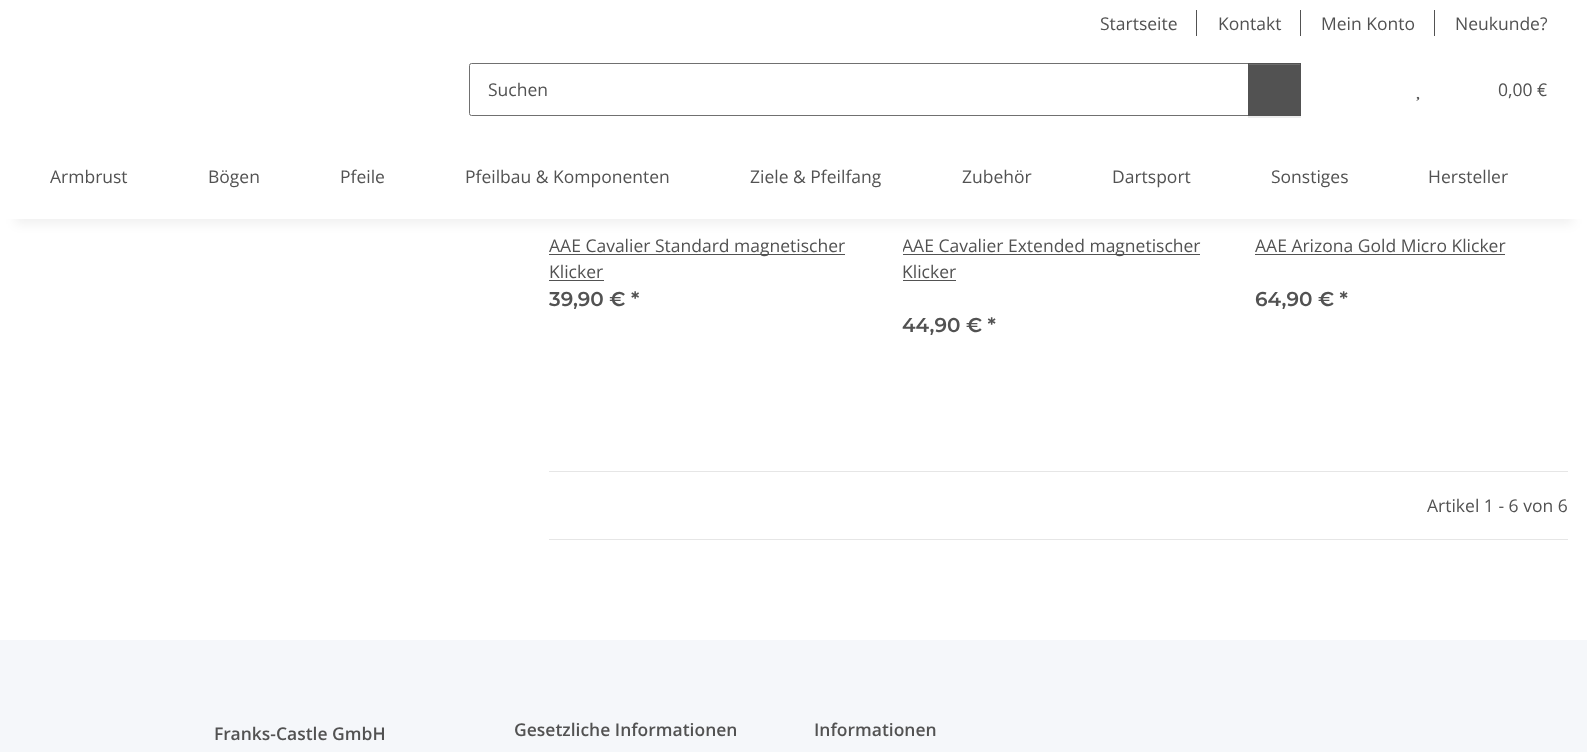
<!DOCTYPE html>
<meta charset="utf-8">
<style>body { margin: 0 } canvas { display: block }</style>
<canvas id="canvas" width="1587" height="752"></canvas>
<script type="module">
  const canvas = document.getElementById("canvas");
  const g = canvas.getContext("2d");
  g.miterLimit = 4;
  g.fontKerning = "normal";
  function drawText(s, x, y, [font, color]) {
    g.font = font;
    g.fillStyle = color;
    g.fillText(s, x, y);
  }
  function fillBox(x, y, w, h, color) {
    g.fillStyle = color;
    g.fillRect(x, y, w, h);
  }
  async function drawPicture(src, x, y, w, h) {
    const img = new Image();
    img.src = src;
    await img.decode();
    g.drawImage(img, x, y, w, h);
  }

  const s1 = ["17.5px Open Sans", "#525252"];
  const s2 = ["600 20px Montserrat", "#525252"];
  const s3 = ["600 17.5px Open Sans", "#525252"];

  fillBox(0, 0, 1587, 752, "#F5F7FA");
  fillBox(0, 219, 1587, 421, "#FFFFFF");
  g.fillStyle = "rgba(0, 0, 0, 0.06)";
  g.filter = "blur(5.5px)";
  g.beginPath();
  g.rect(15, 35, 1558, 189);
  g.fill();
  g.filter = "none";
  fillBox(0, 0, 1587, 219, "#FFFFFF");
  drawText("Startseite", 1100, 30, s1);
  fillBox(1196, 10, 1, 26, "#525252");
  drawText("Kontakt", 1218, 30, s1);
  fillBox(1300, 10, 1, 26, "#525252");
  drawText("Mein Konto", 1321, 30, s1);
  fillBox(1434, 10, 1, 26, "#525252");
  drawText("Neukunde?", 1455, 30, s1);
  g.beginPath();
  g.roundRect(469.5, 63.5, 779, 52, [2, 0, 0, 2]);
  g.strokeStyle = "#707070";
  g.stroke();
  drawText("Suchen", 488, 96, s1);
  g.fillStyle = "rgba(0, 0, 0, 0.07)";
  g.filter = "blur(0.5px)";
  g.beginPath();
  g.rect(1248, 64, 53, 54);
  g.fill();
  g.filter = "none";
  fillBox(1248, 63, 53, 53, "#525252");
  fillBox(1249, 64, 51, 1, "#6C6C6C");
  await drawPicture("pic1.png", 1416, 96, 4, 5);
  drawText("0,00 €", 1498, 96, s1);
  drawText("Armbrust", 50, 183, s1);
  drawText("Bögen", 208, 183, s1);
  drawText("Pfeile", 340, 183, s1);
  drawText("Pfeilbau & Komponenten", 465, 183, s1);
  drawText("Ziele & Pfeilfang", 750, 183, s1);
  drawText("Zubehör", 962, 183, s1);
  drawText("Dartsport", 1112, 183, s1);
  drawText("Sonstiges", 1271, 183, s1);
  drawText("Hersteller", 1428, 183, s1);
  fillBox(549, 254, 296, 1, "#525252");
  drawText("AAE Cavalier Standard magnetischer", 549, 252, s1);
  drawText("Klicker", 549, 278, s1);
  fillBox(549, 280, 55, 1, "#525252");
  drawText("39,90 € *", 549, 306, s2);
  fillBox(903, 254, 297, 1, "#525252");
  g.save();
  g.beginPath();
  g.rect(903, 233, 312, 52);
  g.clip();
  drawText("AAE Cavalier Extended magnetischer", 902, 252, s1);
  g.restore();
  drawText("Klicker", 902, 278, s1);
  fillBox(903, 280, 53, 1, "#525252");
  drawText("44,90 € *", 902, 332, s2);
  drawText("AAE Arizona Gold Micro Klicker", 1255, 252, s1);
  fillBox(1255, 254, 250, 1, "#525252");
  drawText("64,90 € *", 1255, 306, s2);
  fillBox(549, 471, 1019, 1, "#E6E6E6");
  drawText("Artikel 1 - 6 von 6", 1427, 512, s1);
  fillBox(549, 539, 1019, 1, "#E6E6E6");
  drawText("Franks-Castle GmbH", 214, 740, s3);
  drawText("Gesetzliche Informationen", 514, 736, s3);
  drawText("Informationen", 814, 736, s3);
</script>
